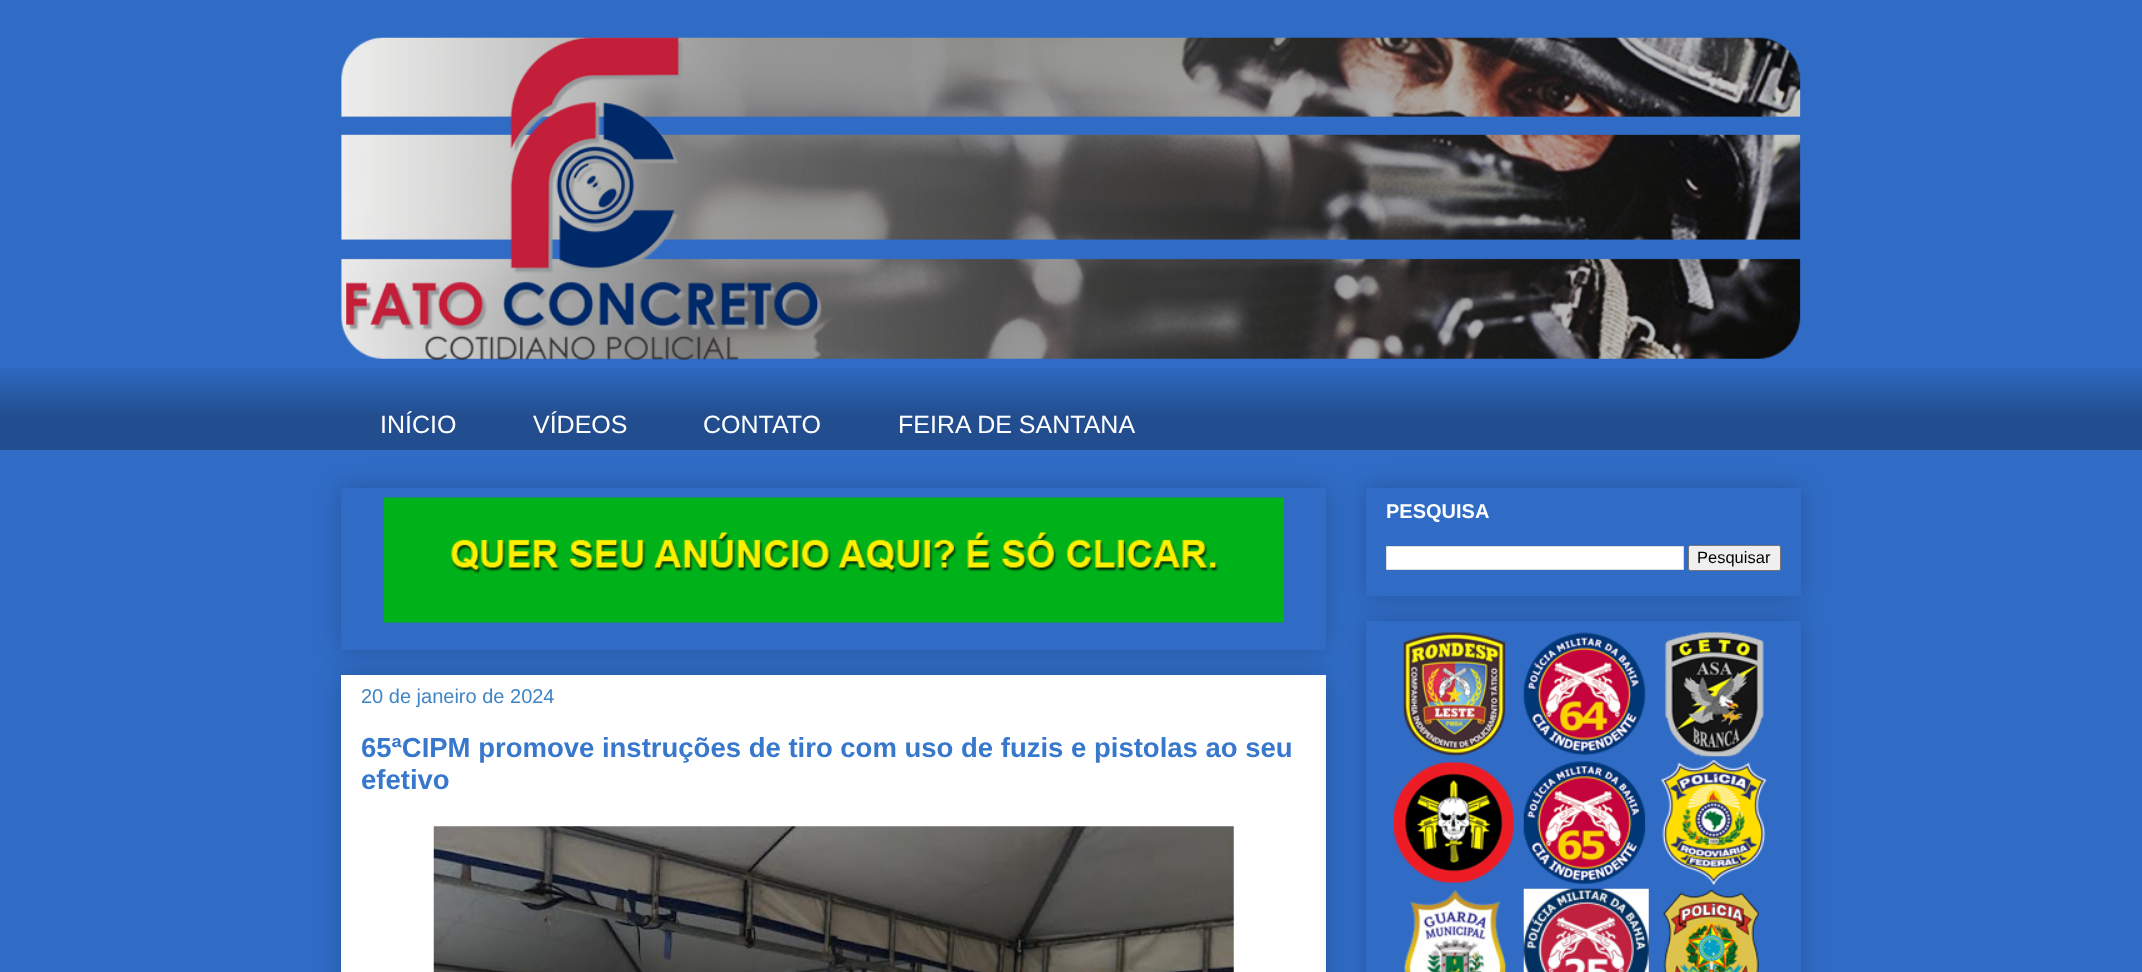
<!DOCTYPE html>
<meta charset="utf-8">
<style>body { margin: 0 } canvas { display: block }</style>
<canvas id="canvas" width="2142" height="972"></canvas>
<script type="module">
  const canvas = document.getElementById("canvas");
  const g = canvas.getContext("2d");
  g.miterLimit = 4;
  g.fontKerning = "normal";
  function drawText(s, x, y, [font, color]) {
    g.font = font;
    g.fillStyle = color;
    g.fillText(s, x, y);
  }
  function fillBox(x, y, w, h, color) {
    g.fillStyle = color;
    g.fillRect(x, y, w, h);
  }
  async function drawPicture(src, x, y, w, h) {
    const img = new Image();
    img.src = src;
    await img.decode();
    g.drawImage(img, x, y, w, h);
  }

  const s1 = ["25px Liberation Sans", "#FFFFFF"];
  const s2 = ["bold 20px Liberation Sans", "#FFFFFF"];
  const s3 = ["16.5px Liberation Sans", "#000000"];
  const s4 = ["20px Liberation Sans", "#3D85C6"];
  const s5 = ["bold 27.5px Liberation Sans", "#3778CD"];

  fillBox(0, 0, 2142, 972, "#306CC6");
  await drawPicture("pic1.png", 341, 37, 1460, 323);
  await drawPicture("pic2.png", 0, 368, 2142, 82);
  drawText("INÍCIO", 380, 433, s1);
  drawText("VÍDEOS", 533, 433, s1);
  drawText("CONTATO", 703, 433, s1);
  drawText("FEIRA DE SANTANA", 898, 433, s1);
  g.save();
  g.beginPath();
  g.moveTo(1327, 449);
  g.lineTo(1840, 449);
  g.lineTo(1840, 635);
  g.lineTo(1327, 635);
  g.closePath();
  g.moveTo(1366, 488);
  g.lineTo(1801, 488);
  g.lineTo(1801, 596);
  g.lineTo(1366, 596);
  g.closePath();
  g.clip("evenodd");
  g.fillStyle = "rgba(0, 0, 0, 0.2)";
  g.filter = "blur(12.5px)";
  g.beginPath();
  g.rect(1366, 488, 435, 108);
  g.fill();
  g.filter = "none";
  g.restore();
  drawText("PESQUISA", 1386, 518, s2);
  g.beginPath();
  g.rect(1386.5, 546.5, 297, 23);
  g.fill();
  g.strokeStyle = "#DDDDDD";
  g.stroke();
  g.fillStyle = "#EFEFEF";
  g.beginPath();
  g.roundRect(1688.5, 545.5, 92, 25, 2);
  g.fill();
  g.strokeStyle = "#767676";
  g.stroke();
  drawText("Pesquisar", 1697, 563, s3);
  g.save();
  g.beginPath();
  g.moveTo(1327, 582);
  g.lineTo(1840, 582);
  g.lineTo(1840, 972);
  g.lineTo(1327, 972);
  g.closePath();
  g.moveTo(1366, 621);
  g.lineTo(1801, 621);
  g.lineTo(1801, 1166);
  g.lineTo(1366, 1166);
  g.closePath();
  g.clip("evenodd");
  g.fillStyle = "rgba(0, 0, 0, 0.2)";
  g.filter = "blur(12.5px)";
  g.beginPath();
  g.rect(1366, 621, 435, 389);
  g.fill();
  g.filter = "none";
  g.restore();
  await drawPicture("pic3.png", 1403, 632, 103, 124);
  await drawPicture("pic4.png", 1523, 632, 123, 124);
  await drawPicture("pic5.png", 1664, 631, 100, 126);
  await drawPicture("pic6.png", 1393, 762, 121, 121);
  await drawPicture("pic7.png", 1523, 761, 123, 123);
  await drawPicture("pic8.png", 1661, 760, 106, 125);
  await drawPicture("pic9.png", 1403, 890, 104, 82);
  await drawPicture("pic10.png", 1523, 888, 126, 84);
  await drawPicture("pic11.png", 1663, 889, 96, 83);
  g.save();
  g.beginPath();
  g.moveTo(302, 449);
  g.lineTo(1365, 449);
  g.lineTo(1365, 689);
  g.lineTo(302, 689);
  g.closePath();
  g.moveTo(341, 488);
  g.lineTo(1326, 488);
  g.lineTo(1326, 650);
  g.lineTo(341, 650);
  g.closePath();
  g.clip("evenodd");
  g.fillStyle = "rgba(0, 0, 0, 0.2)";
  g.filter = "blur(12.5px)";
  g.beginPath();
  g.rect(341, 488, 985, 162);
  g.fill();
  g.filter = "none";
  g.restore();
  await drawPicture("pic12.png", 383, 497, 901, 126);
  g.fillStyle = "rgba(0, 0, 0, 0.2)";
  g.filter = "blur(12.5px)";
  g.beginPath();
  g.rect(341, 675, 985, 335);
  g.fill();
  g.filter = "none";
  fillBox(341, 675, 985, 297, "#FFFFFF");
  drawText("20 de janeiro de 2024", 361, 703, s4);
  drawText("65ªCIPM promove instruções de tiro com uso de fuzis e pistolas ao seu", 361, 757, s5);
  drawText("efetivo", 361, 789, s5);
  await drawPicture("pic13.png", 433, 826, 801, 146);
</script>
